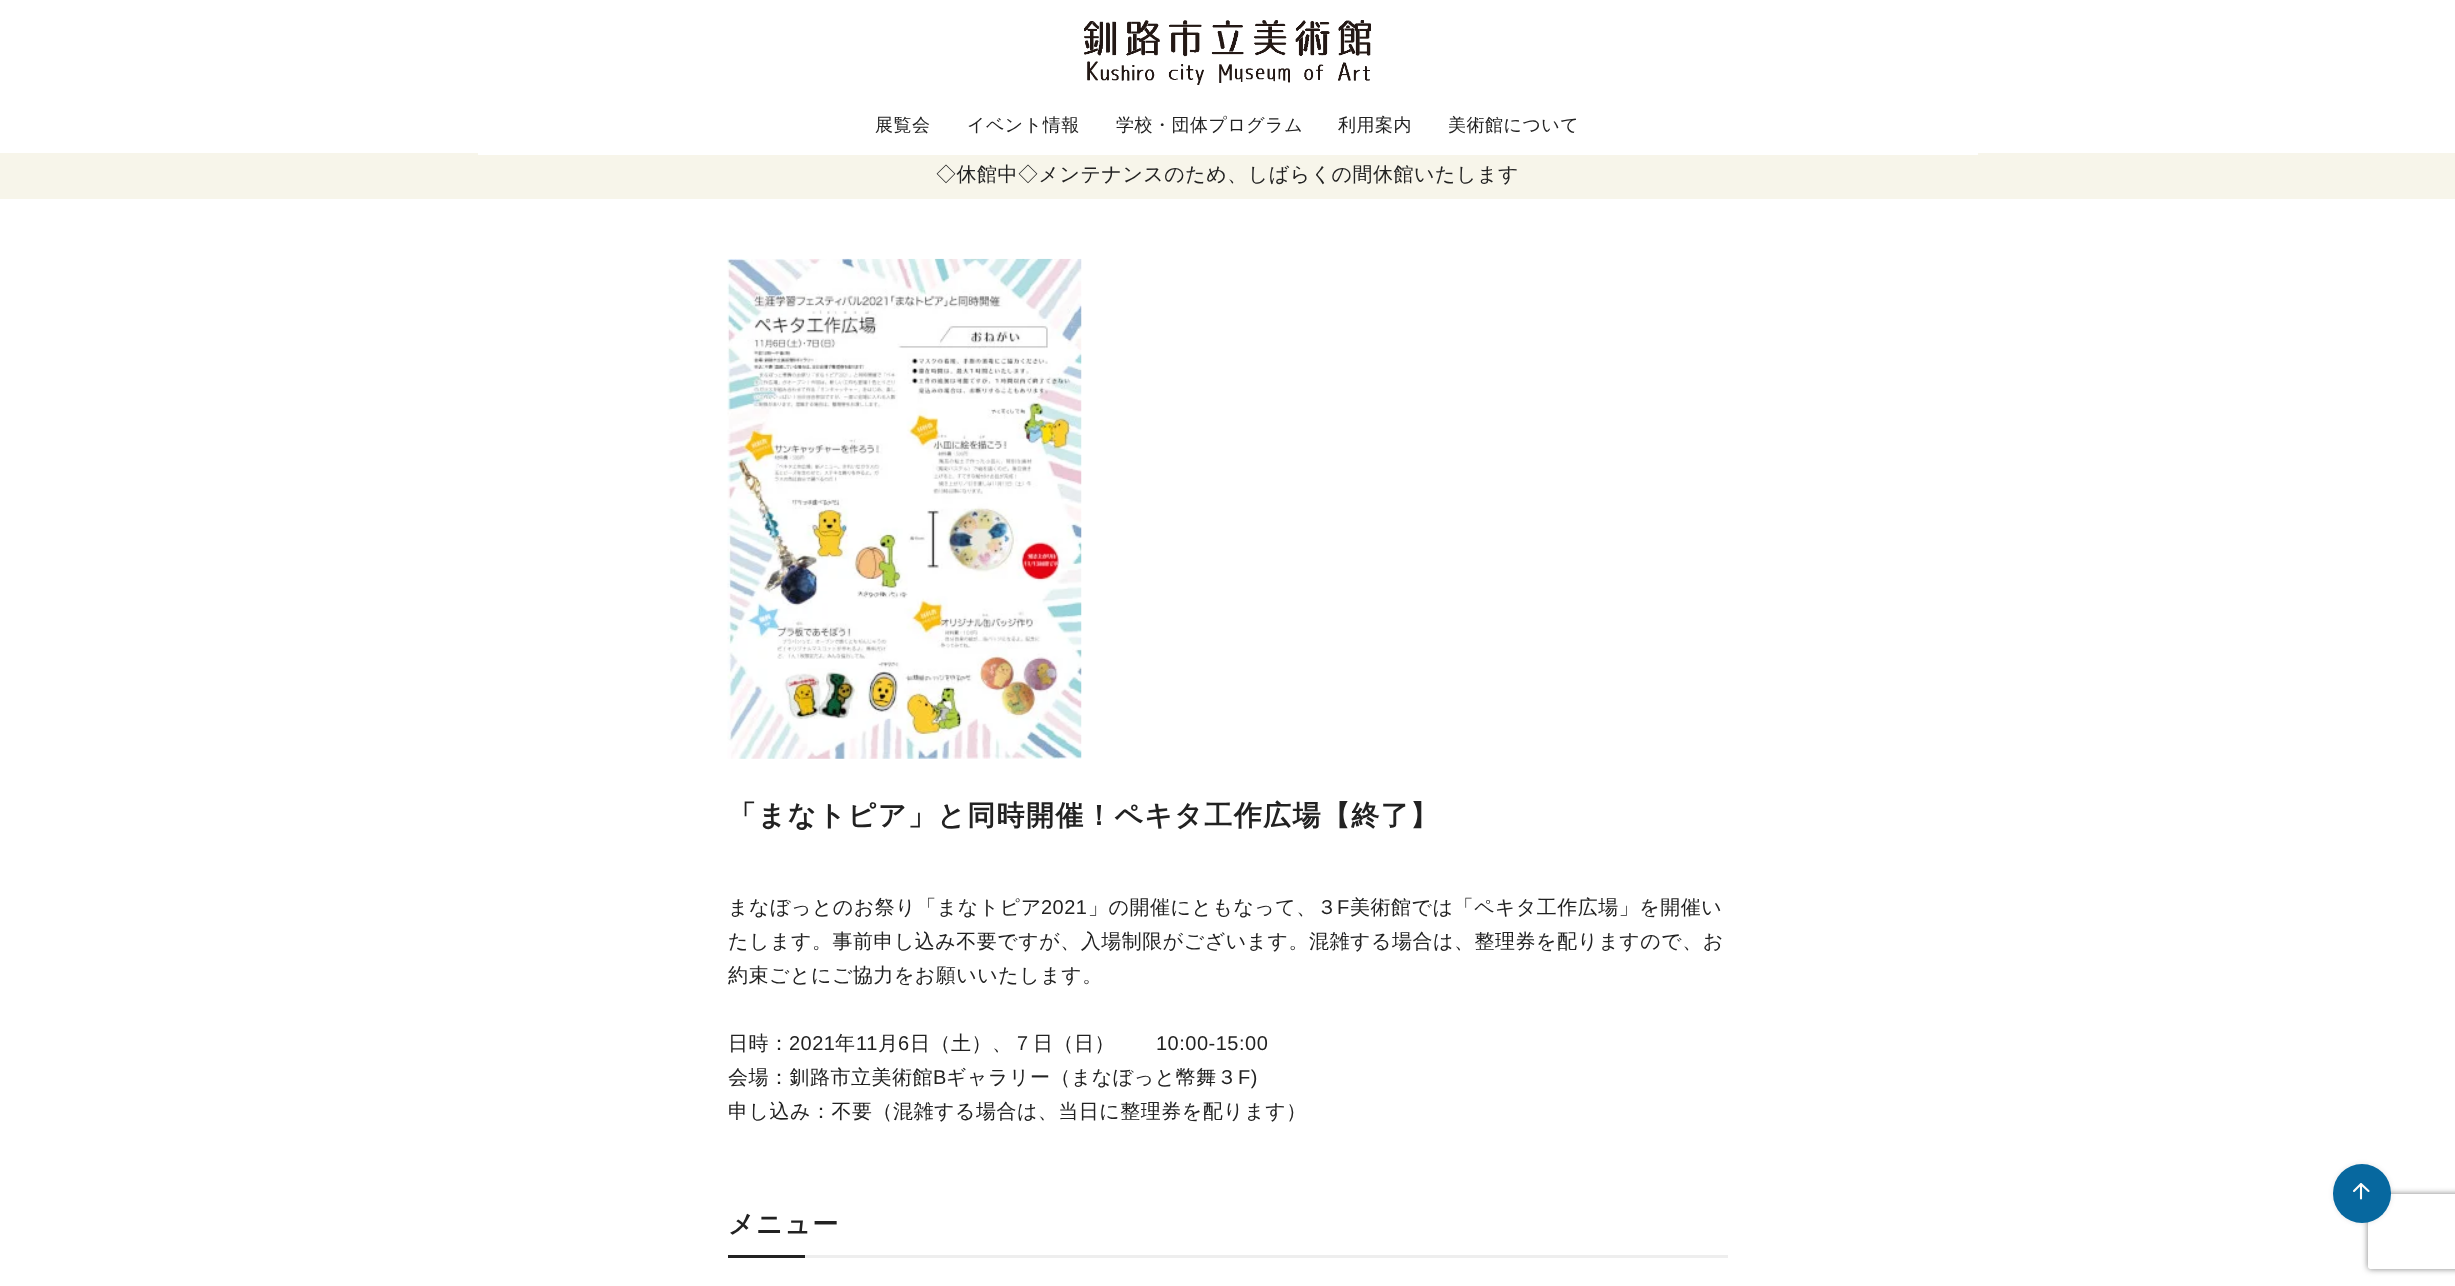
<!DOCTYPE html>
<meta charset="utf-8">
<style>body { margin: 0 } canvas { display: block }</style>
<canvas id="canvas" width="2455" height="1286"></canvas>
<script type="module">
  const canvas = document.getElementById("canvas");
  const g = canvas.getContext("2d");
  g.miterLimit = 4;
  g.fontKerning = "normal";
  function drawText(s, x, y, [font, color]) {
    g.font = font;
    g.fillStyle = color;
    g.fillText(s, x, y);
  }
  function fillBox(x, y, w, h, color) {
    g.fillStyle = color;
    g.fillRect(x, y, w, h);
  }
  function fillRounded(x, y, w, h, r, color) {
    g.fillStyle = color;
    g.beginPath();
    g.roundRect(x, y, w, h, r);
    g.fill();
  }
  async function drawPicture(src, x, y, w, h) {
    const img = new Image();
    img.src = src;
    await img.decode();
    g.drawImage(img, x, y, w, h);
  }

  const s1 = ["500 18px WenQuanYi Zen Hei", "#222222"];
  const s2 = ["500 20px WenQuanYi Zen Hei", "#222222"];
  const s3 = ["bold 28px WenQuanYi Zen Hei", "#222222"];
  const s4 = ["20px Liberation Sans", "#222222"];
  const s5 = ["bold 26px WenQuanYi Zen Hei", "#222222"];

  fillBox(0, 0, 2455, 1286, "#FFFFFF");
  await drawPicture("pic1.png", 1084, 20, 287, 65);
  fillBox(0, 153, 2455, 46, "#F7F5EA");
  fillBox(478, 153, 1500, 2, "#FFFFFF");
  g.letterSpacing = "0.5px";
  drawText("展覧会", 875, 131, s1);
  drawText("イベント情報", 967, 131, s1);
  drawText("学校・団体プログラム", 1116, 131, s1);
  drawText("利用案内", 1338, 131, s1);
  drawText("美術館について", 1448, 131, s1);
  drawText("◇休館中◇メンテナンスのため、しばらくの間休館いたします", 936, 181, s2);
  await drawPicture("pic2.png", 727, 258, 355, 501);
  g.letterSpacing = "1.4px";
  drawText("「まなトピア」と同時開催！ペキタ工作広場【終了】", 728, 825, s3);
  g.letterSpacing = "0.5px";
  drawText("まなぼっとのお祭り「まなトピア", 728, 914, s2);
  drawText("2021", 1041, 914, s4);
  drawText("」の開催にともなって、３", 1088, 914, s2);
  drawText("F", 1337, 914, s4);
  drawText("美術館では「ペキタ工作広場」を開催い", 1350, 914, s2);
  drawText("たします。事前申し込み不要ですが、入場制限がございます。混雑する場合は、整理券を配りますので、お", 728, 948, s2);
  drawText("約束ごとにご協力をお願いいたします。", 728, 982, s2);
  drawText("日時：", 728, 1050, s2);
  drawText("2021", 789, 1050, s4);
  drawText("年", 835, 1050, s2);
  drawText("11", 856, 1050, s4);
  drawText("月", 878, 1050, s2);
  drawText("6", 898, 1050, s4);
  drawText("日（土）、７日（日）", 910, 1050, s2);
  drawText("10:00-15:00", 1156, 1050, s4);
  drawText("会場：釧路市立美術館", 728, 1084, s2);
  drawText("B", 933, 1084, s4);
  drawText("ギャラリー（まなぼっと幣舞３", 946, 1084, s2);
  drawText("F)", 1238, 1084, s4);
  drawText("申し込み：不要（混雑する場合は、当日に整理券を配ります）", 728, 1118, s2);
  fillBox(805, 1255, 923, 3, "#EEEEEE");
  g.letterSpacing = "1.5px";
  drawText("メニュー", 728, 1233, s5);
  fillBox(728, 1255, 77, 3, "#222222");
  g.fillStyle = "rgba(0, 0, 0, 0.1)";
  g.filter = "blur(2.5px)";
  g.beginPath();
  g.roundRect(2333, 1164, 58, 59, 29);
  g.fill();
  g.filter = "none";
  g.save();
  g.beginPath();
  g.moveTo(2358, 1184);
  g.lineTo(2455, 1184);
  g.lineTo(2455, 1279);
  g.lineTo(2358, 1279);
  g.closePath();
  g.moveTo(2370.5, 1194);
  g.lineTo(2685.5, 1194);
  g.bezierCurveTo(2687, 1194, 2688, 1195, 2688, 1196.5);
  g.lineTo(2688, 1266.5);
  g.bezierCurveTo(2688, 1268, 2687, 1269, 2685.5, 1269);
  g.lineTo(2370.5, 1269);
  g.bezierCurveTo(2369, 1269, 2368, 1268, 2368, 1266.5);
  g.lineTo(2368, 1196.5);
  g.bezierCurveTo(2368, 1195, 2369, 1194, 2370.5, 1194);
  g.closePath();
  g.clip("evenodd");
  g.fillStyle = "#808080";
  g.filter = "blur(3px)";
  g.beginPath();
  g.roundRect(2368, 1194, 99, 75, 2.5);
  g.fill();
  g.filter = "none";
  g.restore();
  fillRounded(2333, 1164, 58, 59, 29, "#07689F");
  g.beginPath();
  g.moveTo(2361, 1198.5);
  g.lineTo(2361, 1184);
  g.moveTo(2354, 1191);
  g.lineTo(2361, 1184);
  g.lineTo(2368.5, 1191);
  g.strokeStyle = "#FFFDF8";
  g.lineWidth = 2.1;
  g.lineCap = "round";
  g.lineJoin = "round";
  g.stroke();
</script>
